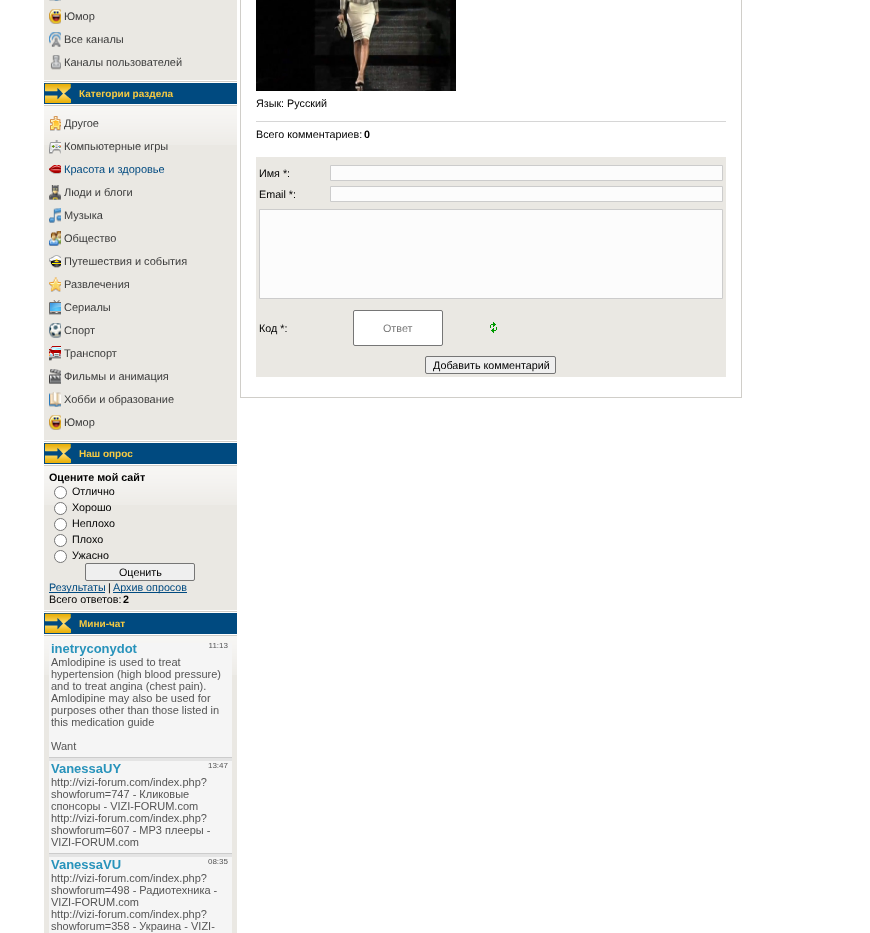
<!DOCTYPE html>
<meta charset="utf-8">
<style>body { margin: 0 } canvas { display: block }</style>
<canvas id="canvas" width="870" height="933"></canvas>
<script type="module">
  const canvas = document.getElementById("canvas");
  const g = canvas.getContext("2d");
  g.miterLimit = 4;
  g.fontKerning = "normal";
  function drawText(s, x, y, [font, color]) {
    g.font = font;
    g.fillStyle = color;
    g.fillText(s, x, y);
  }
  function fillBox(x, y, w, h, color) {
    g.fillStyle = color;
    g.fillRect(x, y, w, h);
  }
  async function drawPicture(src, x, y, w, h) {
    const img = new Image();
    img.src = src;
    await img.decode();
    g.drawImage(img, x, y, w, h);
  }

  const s1 = ["11px Liberation Sans", "#3B3B3B"];
  const s2 = ["bold 10px Liberation Sans", "#F6CA42"];
  const s3 = ["11px Liberation Sans", "#004A80"];
  const s4 = ["bold 10.75px Liberation Sans", "#000000"];
  const s5 = ["10.75px Liberation Sans", "#000000"];
  const s6 = ["10.75px Liberation Sans", "#004A80"];
  const s7 = ["10.75px Liberation Sans", "#757575"];

  fillBox(0, 0, 870, 933, "#FFFFFF");
  fillBox(44, 81, 193, 1, "#D0CEC9");
  fillBox(44, 0, 193, 80, "#EAE8E3");
  await drawPicture("pic1.png", 49, 0, 12, 1);
  await drawPicture("pic2.png", 49, 9, 12, 15);
  drawText("Юмор", 64, 20, s1);
  await drawPicture("pic3.png", 49, 32, 12, 15);
  drawText("Все каналы", 64, 43, s1);
  await drawPicture("pic4.png", 50, 55, 11, 15);
  drawText("Каналы пользователей", 64, 66, s1);
  fillBox(44, 441, 193, 1, "#D0CEC9");
  fillBox(44, 83, 193, 21, "#004A80");
  await drawPicture("pic5.png", 45, 83, 26, 21);
  drawText("Категории раздела", 79, 97, s2);
  fillBox(44, 145, 193, 295, "#EAE8E3");
  await drawPicture("pic6.png", 44, 106, 193, 39);
  fillBox(44, 105, 193, 1, "#D0CEC9");
  await drawPicture("pic7.png", 50, 116, 11, 15);
  drawText("Другое", 64, 127, s1);
  await drawPicture("pic8.png", 49, 140, 12, 14);
  drawText("Компьютерные игры", 64, 150, s1);
  await drawPicture("pic9.png", 49, 165, 12, 9);
  drawText("Красота и здоровье", 64, 173, s3);
  await drawPicture("pic10.png", 49, 185, 12, 15);
  drawText("Люди и блоги", 64, 196, s1);
  await drawPicture("pic11.png", 49, 208, 12, 15);
  drawText("Музыка", 64, 219, s1);
  await drawPicture("pic12.png", 49, 231, 12, 15);
  drawText("Общество", 64, 242, s1);
  await drawPicture("pic13.png", 49, 255, 12, 13);
  drawText("Путешествия и события", 64, 265, s1);
  await drawPicture("pic14.png", 49, 277, 12, 15);
  drawText("Развлечения", 64, 288, s1);
  await drawPicture("pic15.png", 49, 300, 12, 15);
  drawText("Сериалы", 64, 311, s1);
  await drawPicture("pic16.png", 49, 323, 12, 15);
  drawText("Спорт", 64, 334, s1);
  await drawPicture("pic17.png", 49, 346, 12, 15);
  drawText("Транспорт", 64, 357, s1);
  await drawPicture("pic18.png", 49, 369, 12, 15);
  drawText("Фильмы и анимация", 64, 380, s1);
  await drawPicture("pic19.png", 49, 392, 12, 15);
  drawText("Хобби и образование", 64, 403, s1);
  await drawPicture("pic2.png", 49, 415, 12, 15);
  drawText("Юмор", 64, 426, s1);
  fillBox(44, 611, 193, 1, "#D0CEC9");
  fillBox(44, 443, 193, 21, "#004A80");
  await drawPicture("pic5.png", 45, 443, 26, 21);
  drawText("Наш опрос", 79, 457, s2);
  fillBox(44, 505, 193, 105, "#EAE8E3");
  await drawPicture("pic6.png", 44, 466, 193, 39);
  fillBox(44, 465, 193, 1, "#D0CEC9");
  drawText("Оцените мой сайт", 49, 481, s4);
  g.fillStyle = "#FFFFFF";
  g.beginPath();
  g.arc(60.5, 492.5, 6, 0, Math.PI * 2);
  g.fill();
  g.strokeStyle = "#767676";
  g.stroke();
  drawText("Отлично", 72, 495, s5);
  g.fillStyle = "#FFFFFF";
  g.beginPath();
  g.arc(60.5, 508.5, 6, 0, Math.PI * 2);
  g.fill();
  g.stroke();
  drawText("Хорошо", 72, 511, s5);
  g.fillStyle = "#FFFFFF";
  g.beginPath();
  g.arc(60.5, 524.5, 6, 0, Math.PI * 2);
  g.fill();
  g.stroke();
  drawText("Неплохо", 72, 527, s5);
  g.fillStyle = "#FFFFFF";
  g.beginPath();
  g.arc(60.5, 540.5, 6, 0, Math.PI * 2);
  g.fill();
  g.stroke();
  drawText("Плохо", 72, 543, s5);
  g.fillStyle = "#FFFFFF";
  g.beginPath();
  g.arc(60.5, 556.5, 6, 0, Math.PI * 2);
  g.fill();
  g.stroke();
  drawText("Ужасно", 72, 559, s5);
  g.fillStyle = "#EFEFEF";
  g.beginPath();
  g.roundRect(85.5, 563.5, 109, 17, 1.5);
  g.fill();
  g.stroke();
  drawText("Оценить", 119, 576, s5);
  fillBox(49, 592, 56, 1, "#004A80");
  drawText("Результаты", 49, 591, s6);
  drawText("|", 108, 591, s5);
  fillBox(113, 592, 74, 1, "#004A80");
  drawText("Архив опросов", 113, 591, s6);
  drawText("Всего ответов:", 49, 603, s5);
  drawText("2", 123, 603, s4);
  fillBox(44, 613, 193, 21, "#004A80");
  await drawPicture("pic5.png", 45, 613, 26, 21);
  drawText("Мини-чат", 79, 627, s2);
  fillBox(44, 675, 193, 258, "#EAE8E3");
  await drawPicture("pic6.png", 44, 636, 193, 39);
  fillBox(44, 635, 193, 1, "#D0CEC9");
  await drawPicture("pic20.png", 49, 643, 183, 290);
  g.strokeStyle = "#D0CEC9";
  g.strokeRect(240.5, -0.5, 501, 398);
  await drawPicture("pic21.png", 256, 0, 200, 91);
  drawText("Язык: Русский", 256, 107, s5);
  fillBox(256, 121, 470, 1, "#D6D6D6");
  drawText("Всего комментариев:", 256, 138, s5);
  drawText("0", 364, 138, s4);
  fillBox(256, 157, 470, 220, "#EAE8E3");
  drawText("Имя *:", 259, 177, s5);
  g.fillStyle = "#FCFCFC";
  g.beginPath();
  g.rect(330.5, 165.5, 392, 15);
  g.fill();
  g.strokeStyle = "#CCCCCC";
  g.stroke();
  drawText("Email *:", 259, 198, s5);
  g.fillStyle = "#FCFCFC";
  g.beginPath();
  g.rect(330.5, 186.5, 392, 15);
  g.fill();
  g.stroke();
  g.beginPath();
  g.rect(259.5, 209.5, 463, 89);
  g.fill();
  g.stroke();
  drawText("Код *:", 259, 332, s5);
  g.fillStyle = "#FFFFFF";
  g.beginPath();
  g.roundRect(353.5, 310.5, 89, 35, 1.5);
  g.fill();
  g.strokeStyle = "#767676";
  g.stroke();
  drawText("Ответ", 383, 332, s7);
  await drawPicture("pic22.png", 490, 322, 7, 11);
  g.fillStyle = "#EFEFEF";
  g.beginPath();
  g.roundRect(425.5, 356.5, 130, 17, 1.5);
  g.fill();
  g.stroke();
  drawText("Добавить комментарий", 433, 369, s5);
</script>
